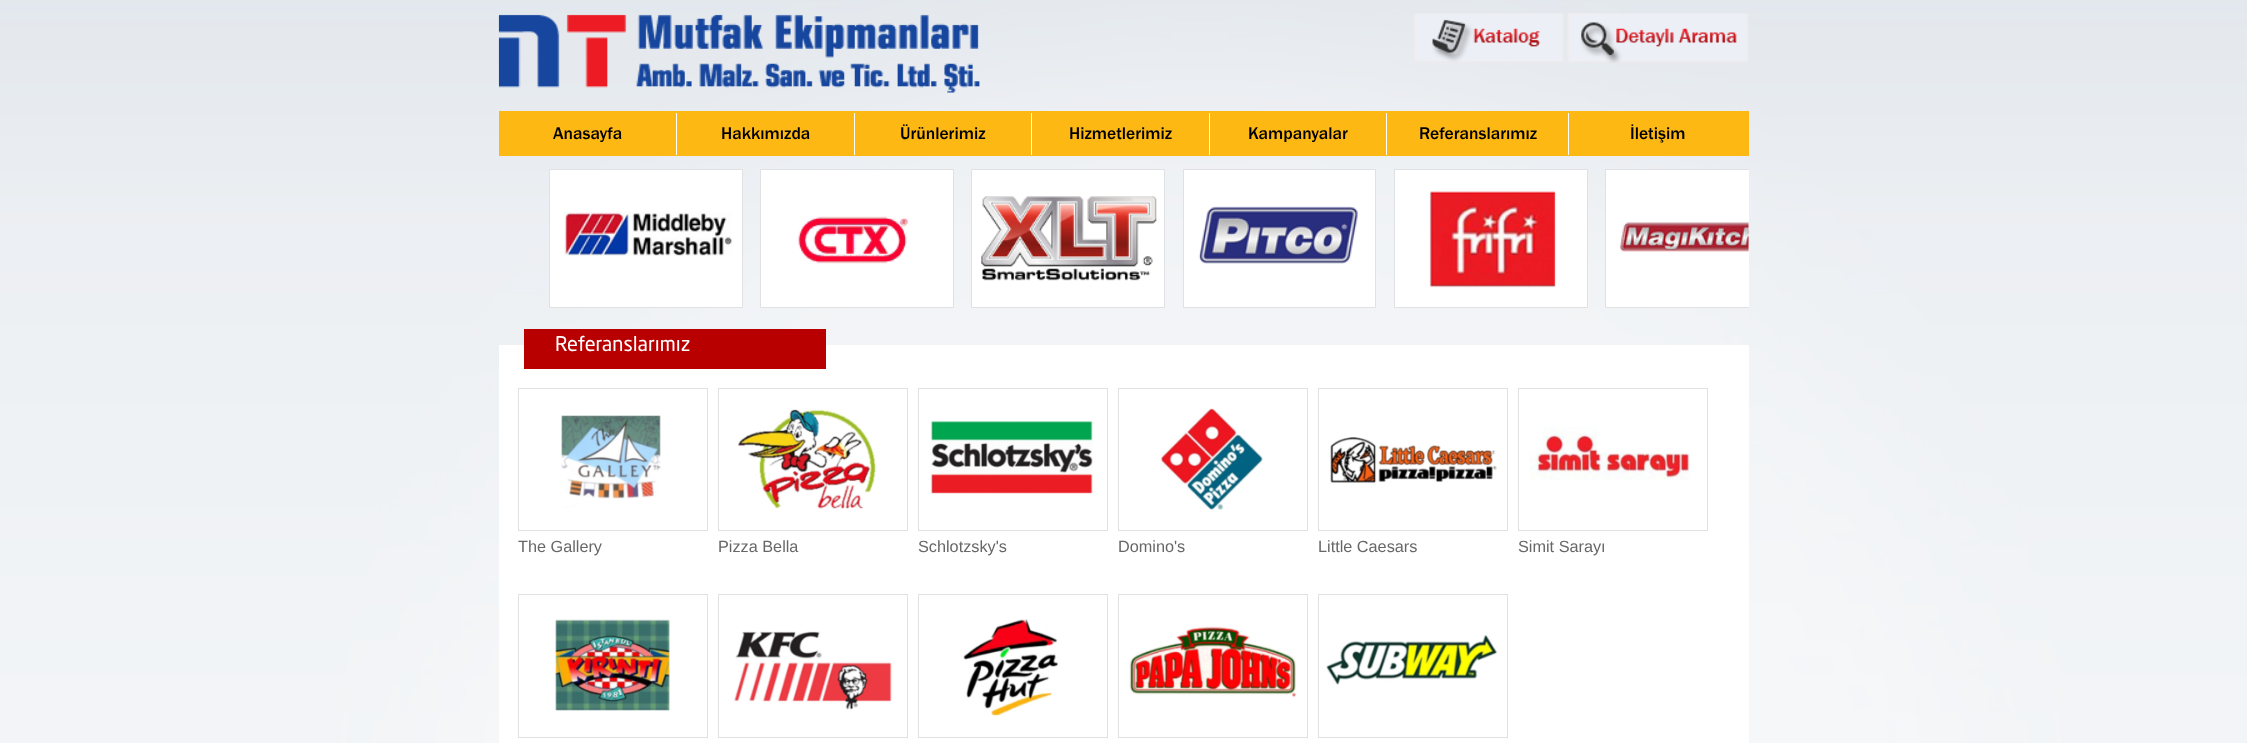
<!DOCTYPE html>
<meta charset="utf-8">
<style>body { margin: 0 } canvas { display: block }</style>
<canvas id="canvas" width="2247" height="743"></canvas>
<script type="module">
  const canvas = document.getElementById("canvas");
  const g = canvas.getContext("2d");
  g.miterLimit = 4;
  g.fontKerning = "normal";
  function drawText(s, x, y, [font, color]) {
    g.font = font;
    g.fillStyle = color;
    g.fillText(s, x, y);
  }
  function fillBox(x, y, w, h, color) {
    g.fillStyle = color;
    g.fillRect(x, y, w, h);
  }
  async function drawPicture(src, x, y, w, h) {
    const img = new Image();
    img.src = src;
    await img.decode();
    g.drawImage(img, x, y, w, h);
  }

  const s1 = ["500 17.5px Franklin Gothic", "#000000"];
  const s2 = ["20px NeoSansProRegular", "#FFFFFF"];
  const s3 = ["16.25px Liberation Sans", "#676767"];

  fillBox(0, 0, 2247, 743, "#FFFFFF");
  await drawPicture("pic1.png", 0, 0, 2247, 743);
  await drawPicture("pic2.png", 498, 14, 482, 79);
  await drawPicture("pic3.png", 1414, 13, 150, 50);
  await drawPicture("pic4.png", 1567, 13, 182, 50);
  fillBox(499, 111, 1250, 45, "#FDB813");
  fillBox(676, 113, 1, 42, "#FFFFFF");
  drawText("Anasayfa", 553, 139, s1);
  fillBox(854, 113, 1, 42, "#FFFFFF");
  drawText("Hakkımızda", 721, 139, s1);
  fillBox(1031, 113, 1, 42, "#FFFFFF");
  drawText("Ürünlerimiz", 900, 139, s1);
  fillBox(1209, 113, 1, 42, "#FFFFFF");
  drawText("Hizmetlerimiz", 1069, 139, s1);
  fillBox(1386, 113, 1, 42, "#FFFFFF");
  drawText("Kampanyalar", 1248, 139, s1);
  fillBox(1568, 113, 1, 42, "#FFFFFF");
  drawText("Referanslarımız", 1419, 139, s1);
  drawText("İletişim", 1630, 139, s1);
  g.fillStyle = "#FFFFFF";
  g.beginPath();
  g.rect(549.5, 169.5, 193, 138);
  g.fill();
  g.strokeStyle = "#E0E1E2";
  g.stroke();
  await drawPicture("pic5.png", 563, 211, 170, 46);
  g.beginPath();
  g.rect(760.5, 169.5, 193, 138);
  g.fill();
  g.stroke();
  await drawPicture("pic6.png", 798, 216, 111, 48);
  g.beginPath();
  g.rect(971.5, 169.5, 193, 138);
  g.fill();
  g.stroke();
  await drawPicture("pic7.png", 981, 196, 176, 85);
  g.beginPath();
  g.rect(1183.5, 169.5, 192, 138);
  g.fill();
  g.stroke();
  await drawPicture("pic8.png", 1198, 206, 160, 58);
  g.beginPath();
  g.rect(1394.5, 169.5, 193, 138);
  g.fill();
  g.stroke();
  await drawPicture("pic9.png", 1429, 191, 127, 97);
  fillBox(1606, 170, 143, 137, "#FFFFFF");
  g.save();
  g.beginPath();
  g.rect(499, 169, 1250, 139);
  g.clip();
  g.strokeRect(1605.5, 169.5, 193, 138);
  g.restore();
  await drawPicture("pic10.png", 1619, 221, 130, 31);
  fillBox(499, 345, 1250, 398, "#FFFFFF");
  fillBox(524, 329, 302, 40, "#B80000");
  drawText("Referanslarımız", 555, 351, s2);
  g.strokeRect(518.5, 388.5, 189, 142);
  await drawPicture("pic11.png", 561, 415, 100, 93);
  drawText("The Gallery", 518, 552, s3);
  g.strokeRect(718.5, 388.5, 189, 142);
  await drawPicture("pic12.png", 738, 409, 138, 100);
  drawText("Pizza Bella", 718, 552, s3);
  g.strokeRect(918.5, 388.5, 189, 142);
  await drawPicture("pic13.png", 930, 421, 163, 73);
  drawText("Schlotzsky's", 918, 552, s3);
  g.strokeRect(1118.5, 388.5, 189, 142);
  await drawPicture("pic14.png", 1160, 408, 103, 103);
  drawText("Domino's", 1118, 552, s3);
  g.strokeRect(1318.5, 388.5, 189, 142);
  await drawPicture("pic15.png", 1330, 437, 167, 46);
  drawText("Little Caesars", 1318, 552, s3);
  g.strokeRect(1518.5, 388.5, 189, 142);
  await drawPicture("pic16.png", 1529, 427, 161, 53);
  drawText("Simit Sarayı", 1518, 552, s3);
  g.strokeRect(518.5, 594.5, 189, 143);
  await drawPicture("pic17.png", 555, 619, 115, 92);
  g.strokeRect(718.5, 594.5, 189, 143);
  await drawPicture("pic18.png", 734, 631, 158, 79);
  g.strokeRect(918.5, 594.5, 189, 143);
  await drawPicture("pic19.png", 963, 619, 95, 97);
  g.strokeRect(1118.5, 594.5, 189, 143);
  await drawPicture("pic20.png", 1129, 626, 168, 72);
  g.strokeRect(1318.5, 594.5, 189, 143);
  await drawPicture("pic21.png", 1326, 634, 172, 51);
</script>
